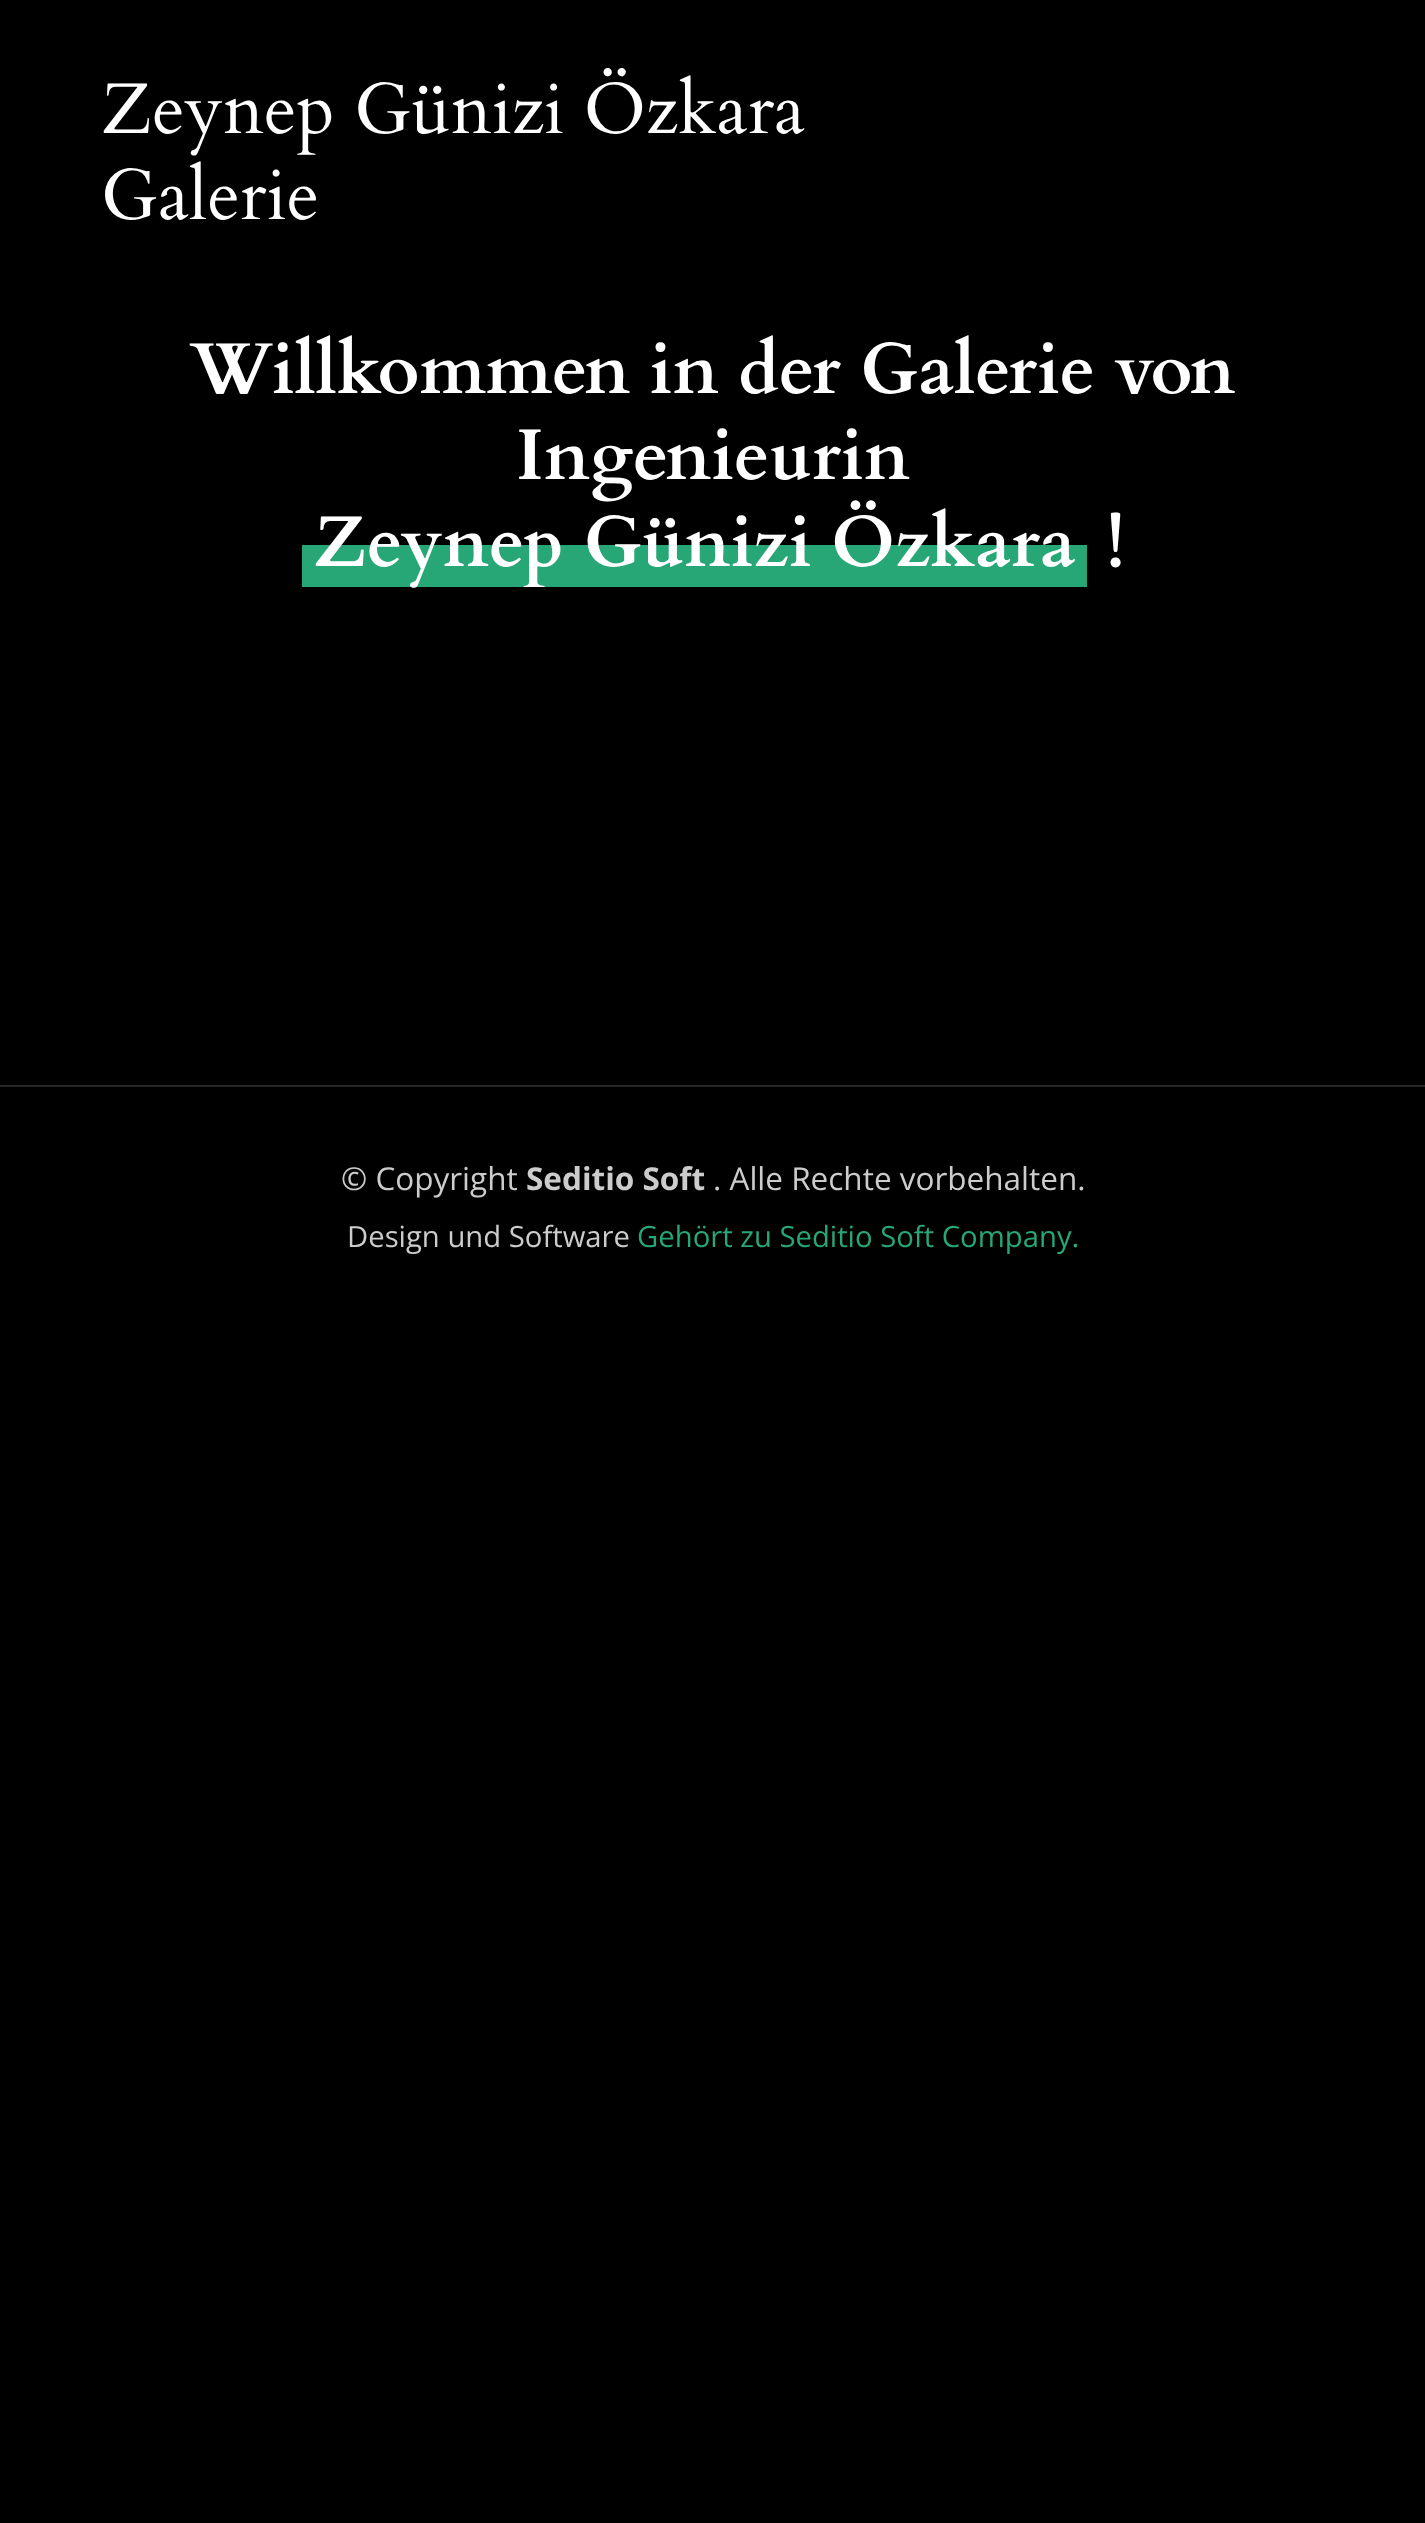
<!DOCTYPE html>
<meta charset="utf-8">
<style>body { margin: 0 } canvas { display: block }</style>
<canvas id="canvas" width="1425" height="2523"></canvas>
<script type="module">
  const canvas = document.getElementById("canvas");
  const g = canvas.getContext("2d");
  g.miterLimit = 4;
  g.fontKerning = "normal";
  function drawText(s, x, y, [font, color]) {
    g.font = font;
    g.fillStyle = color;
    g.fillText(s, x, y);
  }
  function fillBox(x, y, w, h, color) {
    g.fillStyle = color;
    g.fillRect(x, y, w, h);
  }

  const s1 = ["72px Cardo", "#FFFFFF"];
  const s2 = ["bold 72px Cardo", "#FFFFFF"];
  const s3 = ["31.5px Open Sans", "#CCCCCC"];
  const s4 = ["bold 31.5px Open Sans", "#CCCCCC"];
  const s5 = ["29.25px Open Sans", "#CCCCCC"];
  const s6 = ["29.25px Open Sans", "#27A776"];

  fillBox(0, 0, 1425, 2523, "#000000");
  drawText("Zeynep Günizi Özkara", 101, 133, s1);
  drawText("Galerie", 101, 219, s1);
  drawText("Willkommen in der Galerie von", 190, 393, s2);
  drawText("Ingenieurin", 516, 479, s2);
  fillBox(302, 545, 785, 42, "#27A776");
  drawText("Zeynep Günizi Özkara", 313, 566, s2);
  drawText("!", 1106, 566, s2);
  fillBox(0, 1085, 1425, 2, "#262626");
  drawText("© Copyright", 341, 1190, s3);
  drawText("Seditio Soft", 526, 1190, s4);
  drawText(". Alle Rechte vorbehalten.", 713, 1190, s3);
  drawText("Design und Software", 347, 1247, s5);
  drawText("Gehört zu Seditio Soft Company.", 637, 1247, s6);
</script>
